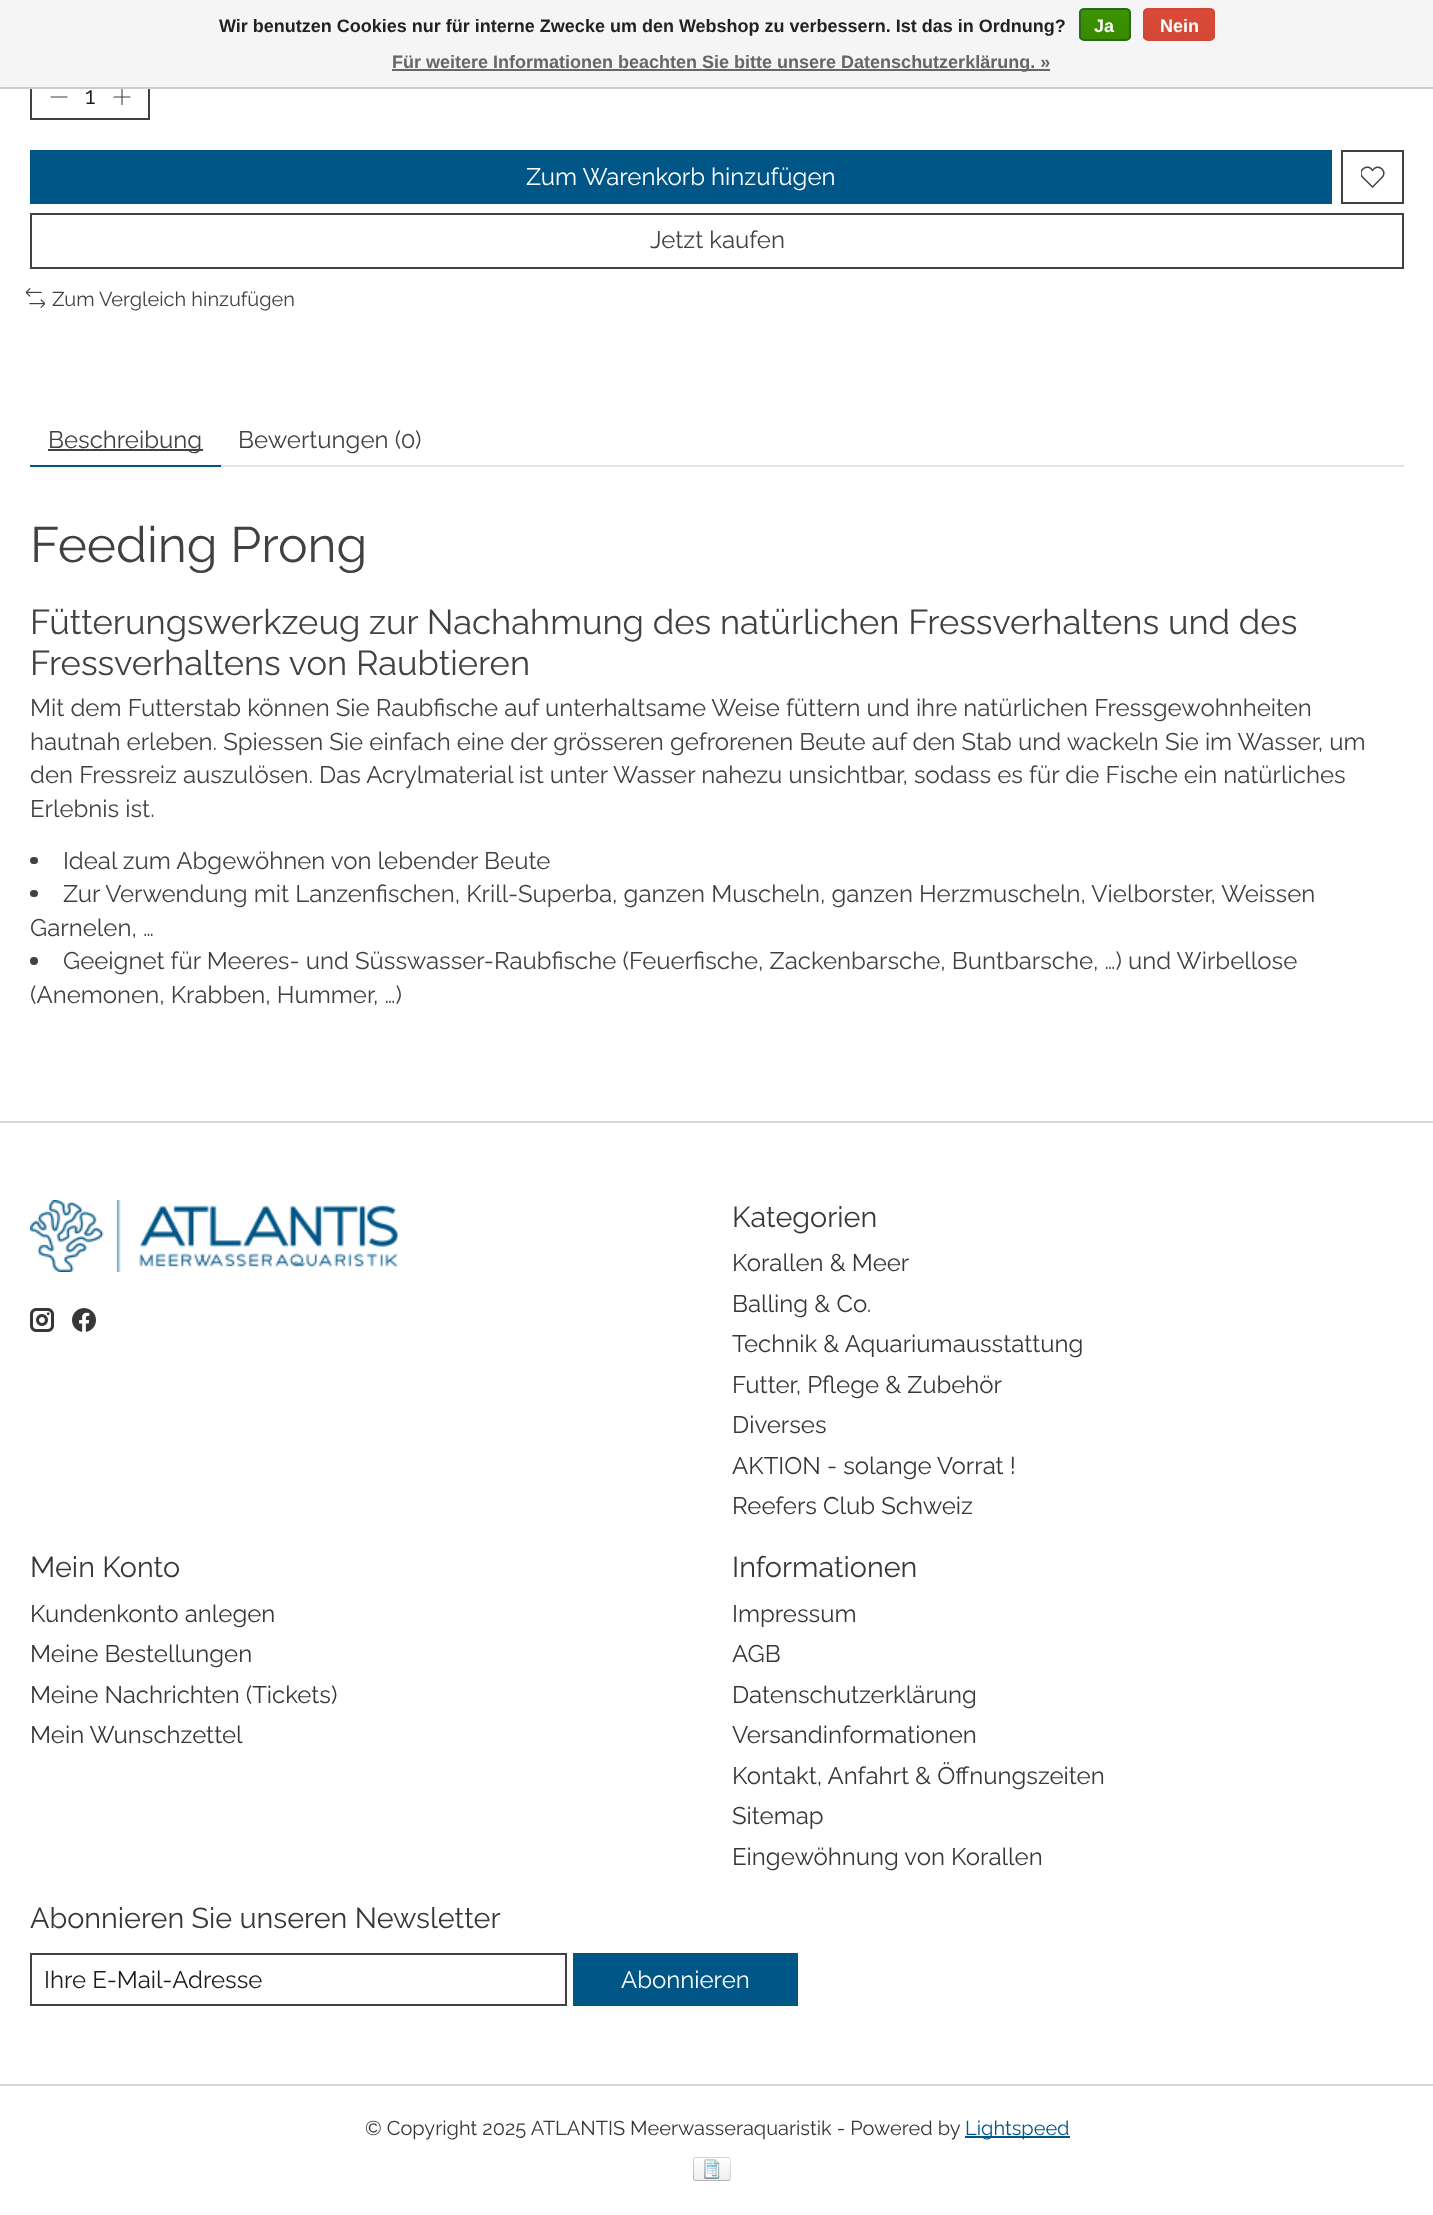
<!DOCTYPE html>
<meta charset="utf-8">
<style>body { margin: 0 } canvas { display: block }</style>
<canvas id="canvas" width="1433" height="2215"></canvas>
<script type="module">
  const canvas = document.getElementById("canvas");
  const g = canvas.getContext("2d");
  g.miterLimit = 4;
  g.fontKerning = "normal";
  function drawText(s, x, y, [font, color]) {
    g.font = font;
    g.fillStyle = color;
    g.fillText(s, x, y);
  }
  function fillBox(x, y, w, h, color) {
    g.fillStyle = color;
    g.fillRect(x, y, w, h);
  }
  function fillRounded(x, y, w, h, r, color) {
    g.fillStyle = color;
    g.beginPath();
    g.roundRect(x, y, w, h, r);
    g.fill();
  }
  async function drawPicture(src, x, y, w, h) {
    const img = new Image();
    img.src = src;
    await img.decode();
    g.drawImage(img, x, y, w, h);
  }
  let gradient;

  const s1 = ["bold 18px Liberation Sans", "#222222"];
  const s2 = ["bold 18px Liberation Sans", "#FFFFFF"];
  const s3 = ["bold 18px Liberation Sans", "#666666"];
  const s4 = ["24px Raleway", "#1C1C21"];
  const s5 = ["24px Raleway", "#FFFFFF"];
  const s6 = ["24px Raleway", "#414141"];
  const s7 = ["20px Raleway", "#414141"];
  const s8 = ["49.75px Raleway", "#414141"];
  const s9 = ["34.55px Raleway", "#414141"];
  const s10 = ["28.75px Raleway", "#383636"];
  const s11 = ["24px Raleway", "#383636"];
  const s12 = ["20px Raleway", "#383636"];
  const s13 = ["20px Raleway", "#005687"];

  fillBox(0, 0, 1433, 2215, "#FFFFFF");
  g.strokeStyle = "#414141";
  g.lineWidth = 2;
  g.strokeRect(31, 72, 118, 47);
  fillBox(0, 0, 1433, 87, "#F5F5F5");
  g.beginPath();
  g.moveTo(122, 89);
  g.lineTo(122, 104.5);
  g.moveTo(114, 97);
  g.lineTo(130, 97);
  g.lineWidth = 1.1;
  g.lineCap = "round";
  g.lineJoin = "round";
  g.stroke();
  fillBox(0, 87, 1433, 2, "#CCCCCC");
  drawText("Wir benutzen Cookies nur für interne Zwecke um den Webshop zu verbessern. Ist das in Ordnung?", 219, 32, s1);
  g.save();
  g.beginPath();
  g.roundRect(1079, 8, 52, 33, 5);
  g.clip();
  gradient = g.createLinearGradient(1105, 9, 1105, 39);
  gradient.addColorStop(0, "#3C9300");
  gradient.addColorStop(1, "#398A00");
  g.fillStyle = gradient;
  g.fillRect(1079, 9, 52, 30);
  g.restore();
  g.beginPath();
  g.roundRect(1080, 9, 50, 31, 4);
  g.strokeStyle = "#29691D";
  g.lineWidth = 2;
  g.lineJoin = "miter";
  g.stroke();
  drawText("Ja", 1094, 32, s2);
  g.save();
  g.beginPath();
  g.roundRect(1143, 8, 72, 33, 5);
  g.clip();
  gradient = g.createLinearGradient(1179, 9, 1179, 39);
  gradient.addColorStop(0, "#DC4A38");
  gradient.addColorStop(1, "#D14836");
  g.fillStyle = gradient;
  g.fillRect(1143, 9, 72, 30);
  g.restore();
  g.beginPath();
  g.roundRect(1144, 9, 70, 31, 4);
  g.strokeStyle = "#D14836";
  g.stroke();
  drawText("Nein", 1160, 32, s2);
  fillBox(392, 69, 658, 2, "#666666");
  drawText("Für weitere Informationen beachten Sie bitte unsere Datenschutzerklärung. »", 392, 68, s3);
  g.beginPath();
  g.moveTo(51, 97);
  g.lineTo(67, 97);
  g.strokeStyle = "#414141";
  g.lineWidth = 1.1;
  g.lineJoin = "round";
  g.stroke();
  drawText("1", 85, 104, s4);
  fillBox(30, 150, 1302, 54, "#005687");
  drawText("Zum Warenkorb hinzufügen", 526, 185, s5);
  g.lineWidth = 2;
  g.lineJoin = "miter";
  g.strokeRect(1342, 151, 61, 52);
  g.save();
  g.beginPath();
  g.rect(1361, 165, 24, 24);
  g.clip();
  g.beginPath();
  g.moveTo(1382, 169);
  g.bezierCurveTo(1379, 166, 1374.5, 167, 1372.5, 170.5);
  g.bezierCurveTo(1368.5, 163, 1357.5, 169.5, 1362, 176.5);
  g.lineTo(1372.5, 187);
  g.lineTo(1382, 177.5);
  g.bezierCurveTo(1384.5, 175, 1384.5, 171.5, 1382, 169);
  g.closePath();
  g.lineWidth = 1.5;
  g.lineJoin = "round";
  g.stroke();
  g.restore();
  g.strokeRect(31, 214, 1372, 54);
  drawText("Jetzt kaufen", 650, 248, s6);
  await drawPicture("pic1.png", 26, 288, 19, 20);
  drawText("Zum Vergleich hinzufügen", 52, 306, s7);
  fillBox(30, 465, 191, 2, "#005687");
  fillBox(48, 449, 155, 2, "#414141");
  drawText("Beschreibung", 48, 448, s6);
  drawText("Bewertungen (0)", 238, 448, s6);
  fillBox(221, 465, 1183, 2, "#E3E3E3");
  drawText("Feeding Prong", 30, 562, s8);
  drawText("Fütterungswerkzeug zur Nachahmung des natürlichen Fressverhaltens und des", 30, 634, s9);
  drawText("Fressverhaltens von Raubtieren", 30, 675, s9);
  drawText("Mit dem Futterstab können Sie Raubfische auf unterhaltsame Weise füttern und ihre natürlichen Fressgewohnheiten", 30, 716, s6);
  drawText("hautnah erleben. Spiessen Sie einfach eine der grösseren gefrorenen Beute auf den Stab und wackeln Sie im Wasser, um", 30, 750, s6);
  drawText("den Fressreiz auszulösen. Das Acrylmaterial ist unter Wasser nahezu unsichtbar, sodass es für die Fische ein natürliches", 30, 783, s6);
  drawText("Erlebnis ist.", 30, 817, s6);
  fillRounded(30, 857, 8, 7, 3.5, "#414141");
  drawText("Ideal zum Abgewöhnen von lebender Beute", 63, 869, s6);
  fillRounded(30, 890, 8, 7, 3.5, "#414141");
  drawText("Zur Verwendung mit Lanzenfischen, Krill-Superba, ganzen Muscheln, ganzen Herzmuscheln, Vielborster, Weissen", 63, 902, s6);
  drawText("Garnelen, …", 30, 936, s6);
  g.beginPath();
  g.arc(34, 961, 4, 0, Math.PI * 2);
  g.fill();
  drawText("Geeignet für Meeres- und Süsswasser-Raubfische (Feuerfische, Zackenbarsche, Buntbarsche, …) und Wirbellose", 63, 969, s6);
  drawText("(Anemonen, Krabben, Hummer, …)", 30, 1003, s6);
  fillBox(0, 1121, 1433, 2, "#D7D7D7");
  await drawPicture("pic2.png", 30, 1200, 368, 72);
  await drawPicture("pic3.png", 30, 1308, 24, 24);
  await drawPicture("pic4.png", 72, 1308, 24, 24);
  drawText("Kategorien", 732, 1227, s10);
  drawText("Korallen & Meer", 732, 1271, s11);
  drawText("Balling & Co.", 732, 1312, s11);
  drawText("Technik & Aquariumausstattung", 732, 1352, s11);
  drawText("Futter, Pflege & Zubehör", 732, 1393, s11);
  drawText("Diverses", 732, 1433, s11);
  drawText("AKTION - solange Vorrat !", 732, 1474, s11);
  drawText("Reefers Club Schweiz", 732, 1514, s11);
  drawText("Mein Konto", 30, 1577, s10);
  drawText("Kundenkonto anlegen", 30, 1622, s11);
  drawText("Meine Bestellungen", 30, 1662, s11);
  drawText("Meine Nachrichten (Tickets)", 30, 1703, s11);
  drawText("Mein Wunschzettel", 30, 1743, s11);
  drawText("Informationen", 732, 1577, s10);
  drawText("Impressum", 732, 1622, s11);
  drawText("AGB", 732, 1662, s11);
  drawText("Datenschutzerklärung", 732, 1703, s11);
  drawText("Versandinformationen", 732, 1743, s11);
  drawText("Kontakt, Anfahrt & Öffnungszeiten", 732, 1784, s11);
  drawText("Sitemap", 732, 1824, s11);
  drawText("Eingewöhnung von Korallen", 732, 1865, s11);
  drawText("Abonnieren Sie unseren Newsletter", 30, 1928, s10);
  g.strokeRect(31, 1954, 535, 51);
  drawText("Ihre E-Mail-Adresse", 44, 1988, s4);
  fillBox(573, 1953, 225, 53, "#005687");
  drawText("Abonnieren", 621, 1988, s5);
  fillBox(0, 2084, 1433, 2, "#D7D7D7");
  drawText("© Copyright 2025 ATLANTIS Meerwasseraquaristik - Powered by", 365, 2135, s12);
  fillBox(965, 2136, 105, 2, "#005687");
  drawText("Lightspeed", 965, 2135, s13);
  await drawPicture("pic5.png", 693, 2157, 38, 24);
</script>
